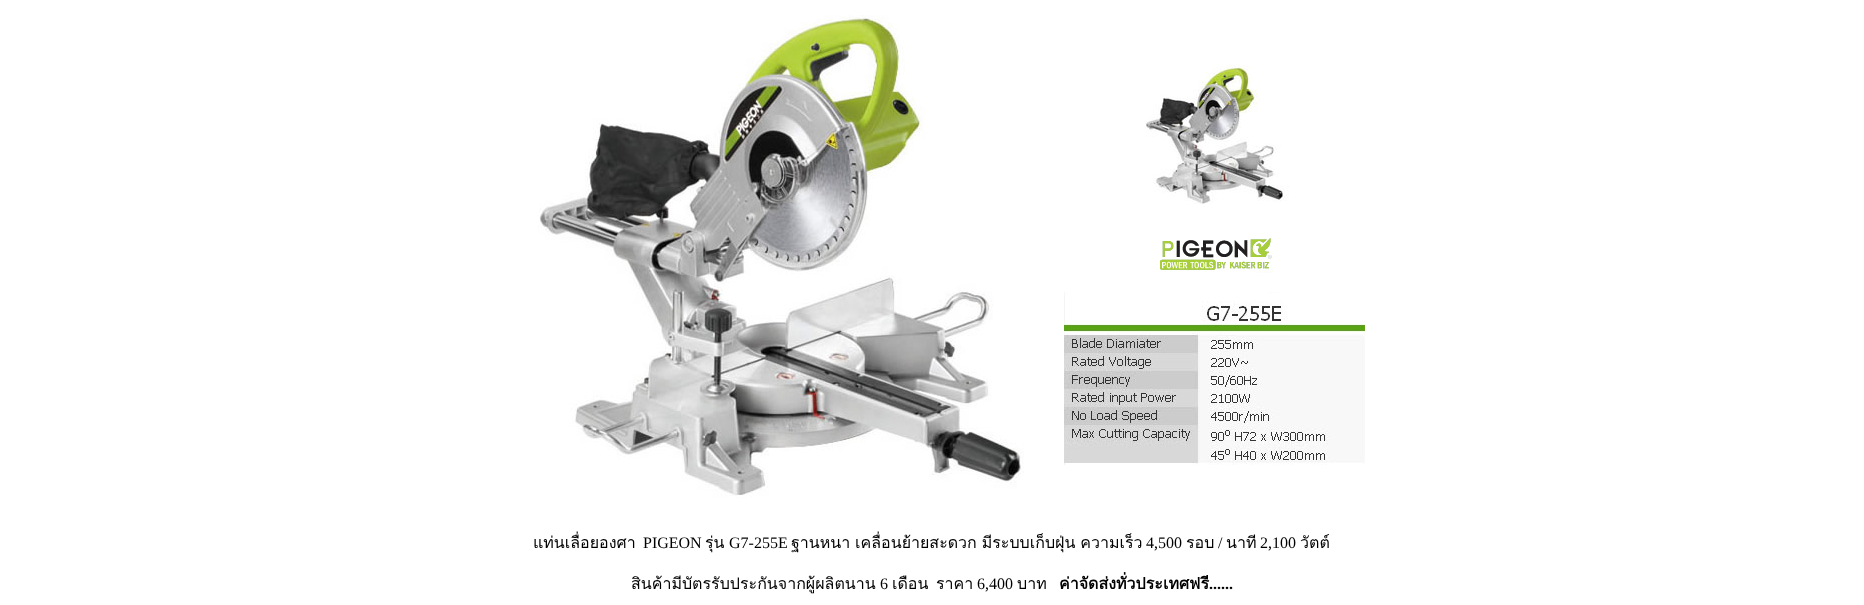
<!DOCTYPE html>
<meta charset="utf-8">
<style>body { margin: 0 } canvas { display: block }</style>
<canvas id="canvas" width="1864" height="605"></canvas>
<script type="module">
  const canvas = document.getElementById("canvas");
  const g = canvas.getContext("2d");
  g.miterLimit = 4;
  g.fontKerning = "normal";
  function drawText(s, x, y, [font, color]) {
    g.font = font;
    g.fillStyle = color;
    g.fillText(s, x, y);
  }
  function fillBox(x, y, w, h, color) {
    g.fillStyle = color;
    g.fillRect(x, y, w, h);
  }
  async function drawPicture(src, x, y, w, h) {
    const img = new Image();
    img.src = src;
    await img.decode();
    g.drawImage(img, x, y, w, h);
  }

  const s1 = ["16px Loma", "#000000"];
  const s2 = ["16px Liberation Serif", "#000000"];
  const s3 = ["bold 16px Loma", "#000000"];
  const s4 = ["bold 16px Liberation Serif", "#000000"];

  fillBox(0, 0, 1864, 605, "#FFFFFF");
  await drawPicture("pic1.png", 538, 15, 486, 483);
  await drawPicture("pic2.png", 1145, 65, 144, 139);
  await drawPicture("pic3.png", 1160, 238, 113, 35);
  await drawPicture("pic4.png", 1064, 292, 301, 173);
  drawText("แท่นเลื่อยองศา", 533, 548, s1);
  drawText("PIGEON", 643, 548, s2);
  drawText("รุ่น", 705, 548, s1);
  drawText("G7-255E", 729, 548, s2);
  g.wordSpacing = "-0.5px";
  drawText("ฐานหนา เคลื่อนย้ายสะดวก มีระบบเก็บฝุ่น ความเร็ว", 791, 548, s1);
  g.wordSpacing = "0px";
  drawText("4,500", 1146, 548, s2);
  drawText("รอบ", 1186, 548, s1);
  drawText("/", 1218, 548, s2);
  drawText("นาที", 1226, 548, s1);
  drawText("2,100", 1260, 548, s2);
  drawText("วัตต์", 1300, 548, s1);
  drawText("สินค้ามีบัตรรับประกันจากผู้ผลิตนาน", 631, 589, s1);
  drawText("6", 880, 589, s2);
  drawText("เดือน", 892, 589, s1);
  drawText("ราคา", 936, 589, s1);
  drawText("6,400", 977, 589, s2);
  drawText("บาท", 1017, 589, s1);
  drawText("ค่าจัดส่งทั่วประเทศฟรี", 1059, 589, s3);
  drawText("......", 1209, 589, s4);
</script>
